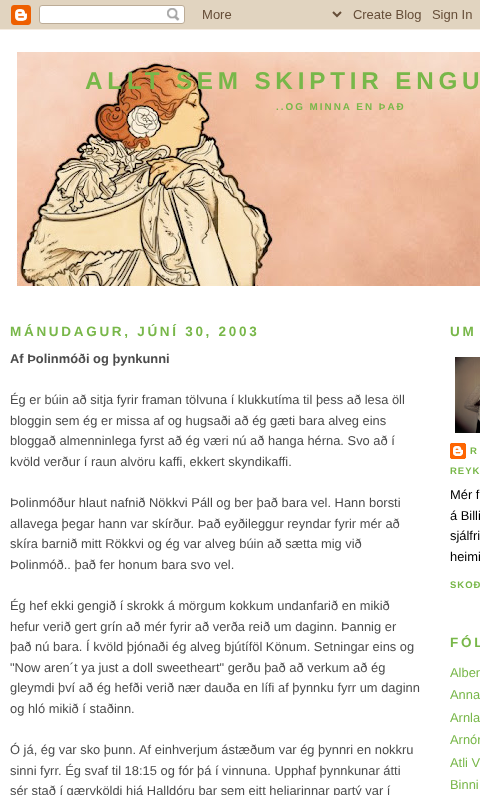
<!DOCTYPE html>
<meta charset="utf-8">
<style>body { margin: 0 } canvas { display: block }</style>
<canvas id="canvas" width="480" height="795"></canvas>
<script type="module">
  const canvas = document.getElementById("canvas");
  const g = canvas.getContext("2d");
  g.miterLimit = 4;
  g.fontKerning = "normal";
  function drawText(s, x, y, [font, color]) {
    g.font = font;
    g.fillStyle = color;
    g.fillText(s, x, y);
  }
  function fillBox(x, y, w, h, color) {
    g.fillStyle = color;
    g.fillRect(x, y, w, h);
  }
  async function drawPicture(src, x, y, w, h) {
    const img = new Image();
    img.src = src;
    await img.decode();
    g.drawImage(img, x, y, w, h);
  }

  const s1 = ["bold 24.25px Liberation Sans", "#78B749"];
  const s2 = ["bold 9.9px Liberation Sans", "#78B749"];
  const s3 = ["bold 13.5px Liberation Sans", "#78B749"];
  const s4 = ["bold 12.9px Liberation Sans", "#4C4C4C"];
  const s5 = ["12.9px Liberation Sans", "#4C4C4C"];
  const s6 = ["bold 9.5px Liberation Sans", "#78B749"];
  const s7 = ["12.9px Liberation Sans", "#000000"];
  const s8 = ["12.9px Liberation Sans", "#78B749"];

  fillBox(0, 0, 480, 795, "#FFFFFF");
  await drawPicture("pic1.png", 0, 0, 480, 30);
  await drawPicture("pic2.png", 17, 52, 463, 234);
  g.letterSpacing = "4.8px";
  drawText("ALLT SEM SKIPTIR ENGU", 85, 89, s1);
  g.letterSpacing = "2px";
  drawText("..OG MINNA EN ÞAÐ", 276, 110, s2);
  g.letterSpacing = "2.7px";
  drawText("MÁNUDAGUR, JÚNÍ 30, 2003", 10, 336, s3);
  g.letterSpacing = "0px";
  drawText("Af Þolinmóði og þynkunni", 10, 363, s4);
  drawText("Ég er búin að sitja fyrir framan tölvuna í klukkutíma til þess að lesa öll", 10, 404, s5);
  drawText("bloggin sem ég er missa af og hugsaði að ég gæti bara alveg eins", 10, 425, s5);
  drawText("bloggað almenninlega fyrst að ég væri nú að hanga hérna. Svo að í", 10, 445, s5);
  drawText("kvöld verður í raun alvöru kaffi, ekkert skyndikaffi.", 10, 466, s5);
  drawText("Þolinmóður hlaut nafnið Nökkvi Páll og ber það bara vel. Hann borsti", 10, 507, s5);
  drawText("allavega þegar hann var skírður. Það eyðileggur reyndar fyrir mér að", 10, 528, s5);
  drawText("skíra barnið mitt Rökkvi og ég var alveg búin að sætta mig við", 10, 548, s5);
  drawText("Þolinmóð.. það fer honum bara svo vel.", 10, 569, s5);
  drawText("Ég hef ekki gengið í skrokk á mörgum kokkum undanfarið en mikið", 10, 610, s5);
  drawText("hefur verið gert grín að mér fyrir að verða reið um daginn. Þannig er", 10, 631, s5);
  drawText("það nú bara. Í kvöld þjónaði ég alveg bjútíföl Könum. Setningar eins og", 10, 651, s5);
  drawText("\"Now aren´t ya just a doll sweetheart\" gerðu það að verkum að ég", 10, 672, s5);
  drawText("gleymdi því að ég hefði verið nær dauða en lífi af þynnku fyrr um daginn", 10, 692, s5);
  drawText("og hló mikið í staðinn.", 10, 713, s5);
  drawText("Ó já, ég var sko þunn. Af einhverjum ástæðum var ég þynnri en nokkru", 10, 754, s5);
  drawText("sinni fyrr. Ég svaf til 18:15 og fór þá í vinnuna. Upphaf þynnkunar átti", 10, 775, s5);
  drawText("sér stað í gærvköldi hjá Halldóru þar sem eitt heljarinnar partý var í", 10, 795, s5);
  g.letterSpacing = "2.7px";
  drawText("UM", 450, 336, s3);
  await drawPicture("pic3.png", 455, 357, 25, 76);
  await drawPicture("pic4.png", 450, 443, 16, 16);
  g.letterSpacing = "1px";
  drawText("R", 470, 454, s6);
  drawText("REYK", 450, 474, s6);
  g.letterSpacing = "0px";
  drawText("Mér f", 450, 499, s7);
  drawText("á Billi", 450, 520, s7);
  drawText("sjálfri", 450, 540, s7);
  drawText("heimi", 450, 561, s7);
  g.letterSpacing = "1px";
  drawText("SKOÐ", 450, 588, s6);
  g.letterSpacing = "2.7px";
  drawText("FÓL", 450, 647, s3);
  g.letterSpacing = "0px";
  drawText("Alber", 450, 677, s8);
  drawText("Anna", 450, 699, s8);
  drawText("Arnla", 450, 722, s8);
  drawText("Arnór", 450, 744, s8);
  drawText("Atli V", 450, 767, s8);
  drawText("Binni", 450, 789, s8);
</script>
